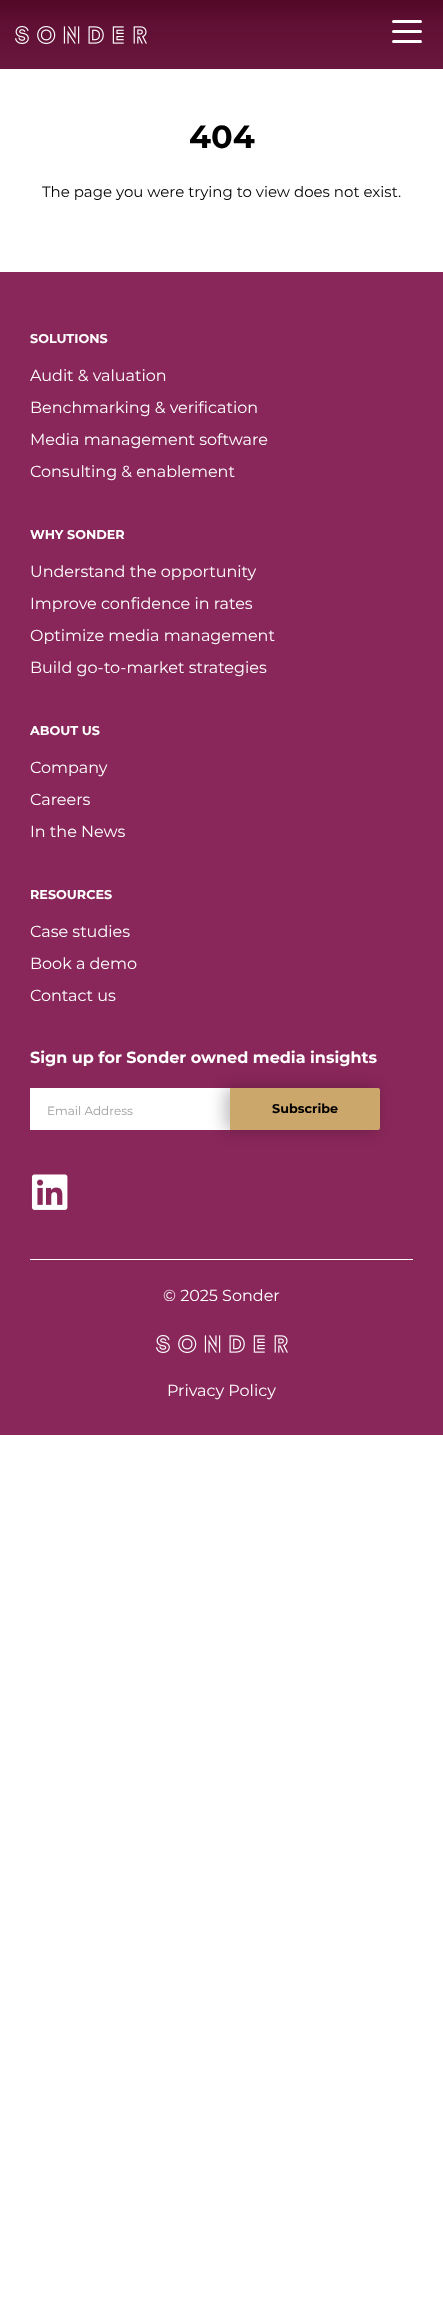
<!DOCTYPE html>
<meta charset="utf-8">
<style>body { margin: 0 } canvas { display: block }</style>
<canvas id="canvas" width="443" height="2321"></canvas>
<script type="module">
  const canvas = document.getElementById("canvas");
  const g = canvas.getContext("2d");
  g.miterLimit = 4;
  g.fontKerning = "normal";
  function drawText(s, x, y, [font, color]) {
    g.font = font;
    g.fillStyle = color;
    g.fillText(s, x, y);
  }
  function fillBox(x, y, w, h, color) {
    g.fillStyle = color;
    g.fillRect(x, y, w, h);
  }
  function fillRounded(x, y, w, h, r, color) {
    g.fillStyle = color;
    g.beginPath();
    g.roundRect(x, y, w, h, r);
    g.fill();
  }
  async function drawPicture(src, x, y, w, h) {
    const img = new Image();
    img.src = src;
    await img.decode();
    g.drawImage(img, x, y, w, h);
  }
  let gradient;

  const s1 = ["bold 32px Montserrat", "#000000"];
  const s2 = ["15px Montserrat", "#000000"];
  const s3 = ["bold 12.75px Montserrat", "#FFFFFF"];
  const s4 = ["16px Montserrat", "#FFFFFF"];
  const s5 = ["bold 16px Montserrat", "#FFFFFF"];
  const s6 = ["12px Montserrat", "#9E9E9E"];
  const s7 = ["bold 12.75px Montserrat", "#000000"];

  fillBox(0, 0, 443, 2321, "#FFFFFF");
  gradient = g.createLinearGradient(222, 0, 222, 69);
  gradient.addColorStop(0, "#520826");
  gradient.addColorStop(0.35, "#601034");
  gradient.addColorStop(1, "#6A173D");
  g.fillStyle = gradient;
  g.fillRect(0, 0, 443, 69);
  await drawPicture("pic1.png", 15, 26, 132, 18);
  fillRounded(392, 40, 30, 3, 1.5, "#FFFFFF");
  fillRounded(392, 20, 30, 3, 1.5, "#FFFFFF");
  fillRounded(392, 30, 30, 3, 1.5, "#FFFFFF");
  drawText("404", 189, 148, s1);
  drawText("The page you were trying to view does not exist.", 42, 197, s2);
  fillBox(0, 272, 443, 1163, "#89275A");
  drawText("SOLUTIONS", 30, 343, s3);
  drawText("Audit & valuation", 30, 381, s4);
  drawText("Benchmarking & verification", 30, 413, s4);
  drawText("Media management software", 30, 445, s4);
  drawText("Consulting & enablement", 30, 477, s4);
  drawText("WHY SONDER", 30, 539, s3);
  drawText("Understand the opportunity", 30, 577, s4);
  drawText("Improve confidence in rates", 30, 609, s4);
  drawText("Optimize media management", 30, 641, s4);
  drawText("Build go-to-market strategies", 30, 673, s4);
  drawText("ABOUT US", 30, 735, s3);
  drawText("Company", 30, 773, s4);
  drawText("Careers", 30, 805, s4);
  drawText("In the News", 30, 837, s4);
  drawText("RESOURCES", 30, 899, s3);
  drawText("Case studies", 30, 937, s4);
  drawText("Book a demo", 30, 969, s4);
  drawText("Contact us", 30, 1001, s4);
  drawText("Sign up for Sonder owned media insights", 30, 1063, s5);
  fillBox(30, 1088, 200, 42, "#FFFFFF");
  drawText("Email Address", 47, 1115, s6);
  g.fillStyle = "rgba(0, 0, 0, 0.25)";
  g.filter = "blur(8px)";
  g.beginPath();
  g.roundRect(225, 1088, 150, 42, 2);
  g.fill();
  g.filter = "none";
  g.fillStyle = "#CCA76C";
  g.beginPath();
  g.roundRect(231, 1089, 148, 40, [0, 1, 1, 0]);
  g.fill();
  g.strokeStyle = "#CCA76C";
  g.lineWidth = 2;
  g.stroke();
  drawText("Subscribe", 272, 1113, s7);
  await drawPicture("pic2.png", 31, 1174, 37, 36);
  fillBox(30, 1259, 383, 1, "#FFFFFF");
  drawText("© 2025 Sonder", 163, 1301, s4);
  await drawPicture("pic3.png", 156, 1335, 132, 18);
  drawText("Privacy Policy", 167, 1396, s4);
</script>
